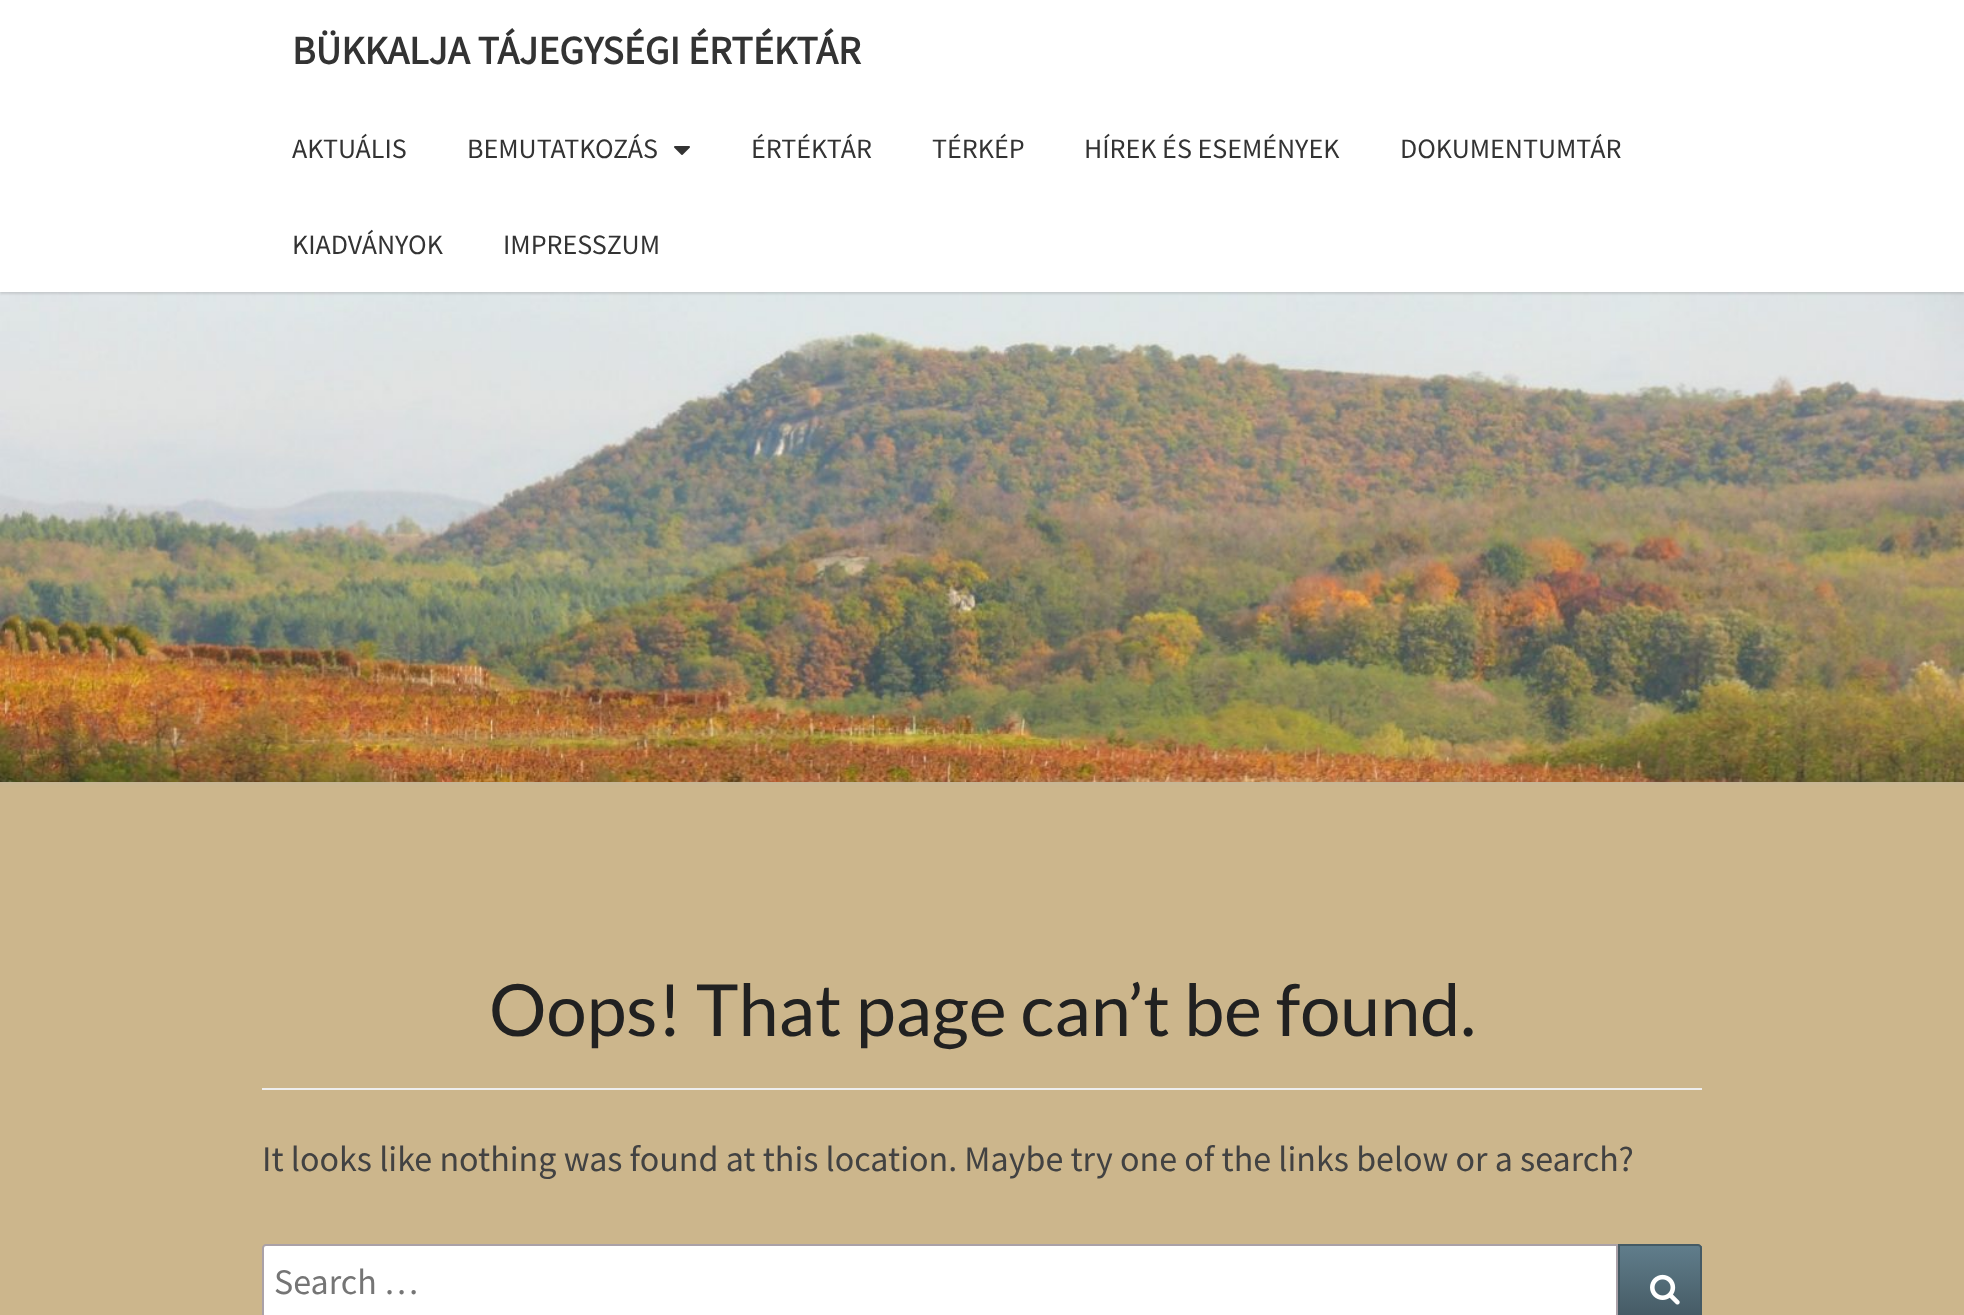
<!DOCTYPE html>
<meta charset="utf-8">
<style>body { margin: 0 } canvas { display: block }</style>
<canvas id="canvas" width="1964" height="1315"></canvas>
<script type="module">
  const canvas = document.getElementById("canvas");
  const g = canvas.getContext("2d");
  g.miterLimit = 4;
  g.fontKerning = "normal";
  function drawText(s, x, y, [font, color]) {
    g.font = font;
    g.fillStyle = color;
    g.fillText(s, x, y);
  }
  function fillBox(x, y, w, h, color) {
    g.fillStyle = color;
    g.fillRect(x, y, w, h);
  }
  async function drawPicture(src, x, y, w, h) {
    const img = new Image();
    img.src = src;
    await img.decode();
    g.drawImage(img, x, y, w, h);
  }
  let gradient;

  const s1 = ["bold 40px Source Sans Pro", "#333333"];
  const s2 = ["28px Source Sans Pro", "#333333"];
  const s3 = ["72px Lato", "#212121"];
  const s4 = ["36px Source Sans Pro", "#424242"];
  const s5 = ["36px Source Sans Pro", "#757575"];

  fillBox(0, 0, 1964, 1315, "#CCB68C");
  g.fillStyle = "rgba(182, 182, 182, 0.3)";
  g.filter = "blur(2px)";
  g.beginPath();
  g.rect(-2, 290, 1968, 494);
  g.fill();
  g.filter = "none";
  await drawPicture("pic2.png", 0, 292, 1964, 490);
  g.fillStyle = "rgba(100, 100, 100, 0.2)";
  g.filter = "blur(1px)";
  g.beginPath();
  g.rect(0, 2, 1964, 292);
  g.fill();
  g.filter = "none";
  fillBox(0, 0, 1964, 292, "#FFFFFF");
  drawText("BÜKKALJA TÁJEGYSÉGI ÉRTÉKTÁR", 292, 64, s1);
  drawText("AKTUÁLIS", 292, 158, s2);
  drawText("BEMUTATKOZÁS", 467, 158, s2);
  await drawPicture("pic1.png", 674, 146, 16, 9);
  drawText("ÉRTÉKTÁR", 751, 158, s2);
  drawText("TÉRKÉP", 932, 158, s2);
  drawText("HÍREK ÉS ESEMÉNYEK", 1084, 158, s2);
  drawText("DOKUMENTUMTÁR", 1400, 158, s2);
  drawText("KIADVÁNYOK", 292, 254, s2);
  drawText("IMPRESSZUM", 503, 254, s2);
  fillBox(262, 1088, 1440, 2, "#EEEEEE");
  drawText("Oops! That page can’t be found.", 489, 1036, s3);
  drawText("It looks like nothing was found at this location. Maybe try one of the links below or a search?", 262, 1171, s4);
  g.fillStyle = "#FFFFFF";
  g.beginPath();
  g.moveTo(266, 1245);
  g.lineTo(1617, 1245);
  g.lineTo(1617, 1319);
  g.lineTo(266, 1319);
  g.bezierCurveTo(264.5, 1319, 263, 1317.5, 263, 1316);
  g.lineTo(263, 1248);
  g.bezierCurveTo(263, 1246.5, 264.5, 1245, 266, 1245);
  g.closePath();
  g.fill();
  g.strokeStyle = "#AAA1A8";
  g.lineWidth = 2;
  g.stroke();
  drawText("Search …", 274, 1294, s5);
  gradient = g.createLinearGradient(1660, 1246, 1660, 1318);
  gradient.addColorStop(0, "#607D8B");
  gradient.addColorStop(1, "#455A64");
  g.fillStyle = gradient;
  g.fillRect(1620, 1246, 82, 69);
  g.beginPath();
  g.moveTo(1619, 1245);
  g.lineTo(1698, 1245);
  g.bezierCurveTo(1699.5, 1245, 1701, 1246.5, 1701, 1248);
  g.lineTo(1701, 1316);
  g.bezierCurveTo(1701, 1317.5, 1699.5, 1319, 1698, 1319);
  g.lineTo(1619, 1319);
  g.closePath();
  g.strokeStyle = "#455A64";
  g.stroke();
  await drawPicture("pic3.png", 1650, 1274, 30, 31);
</script>
